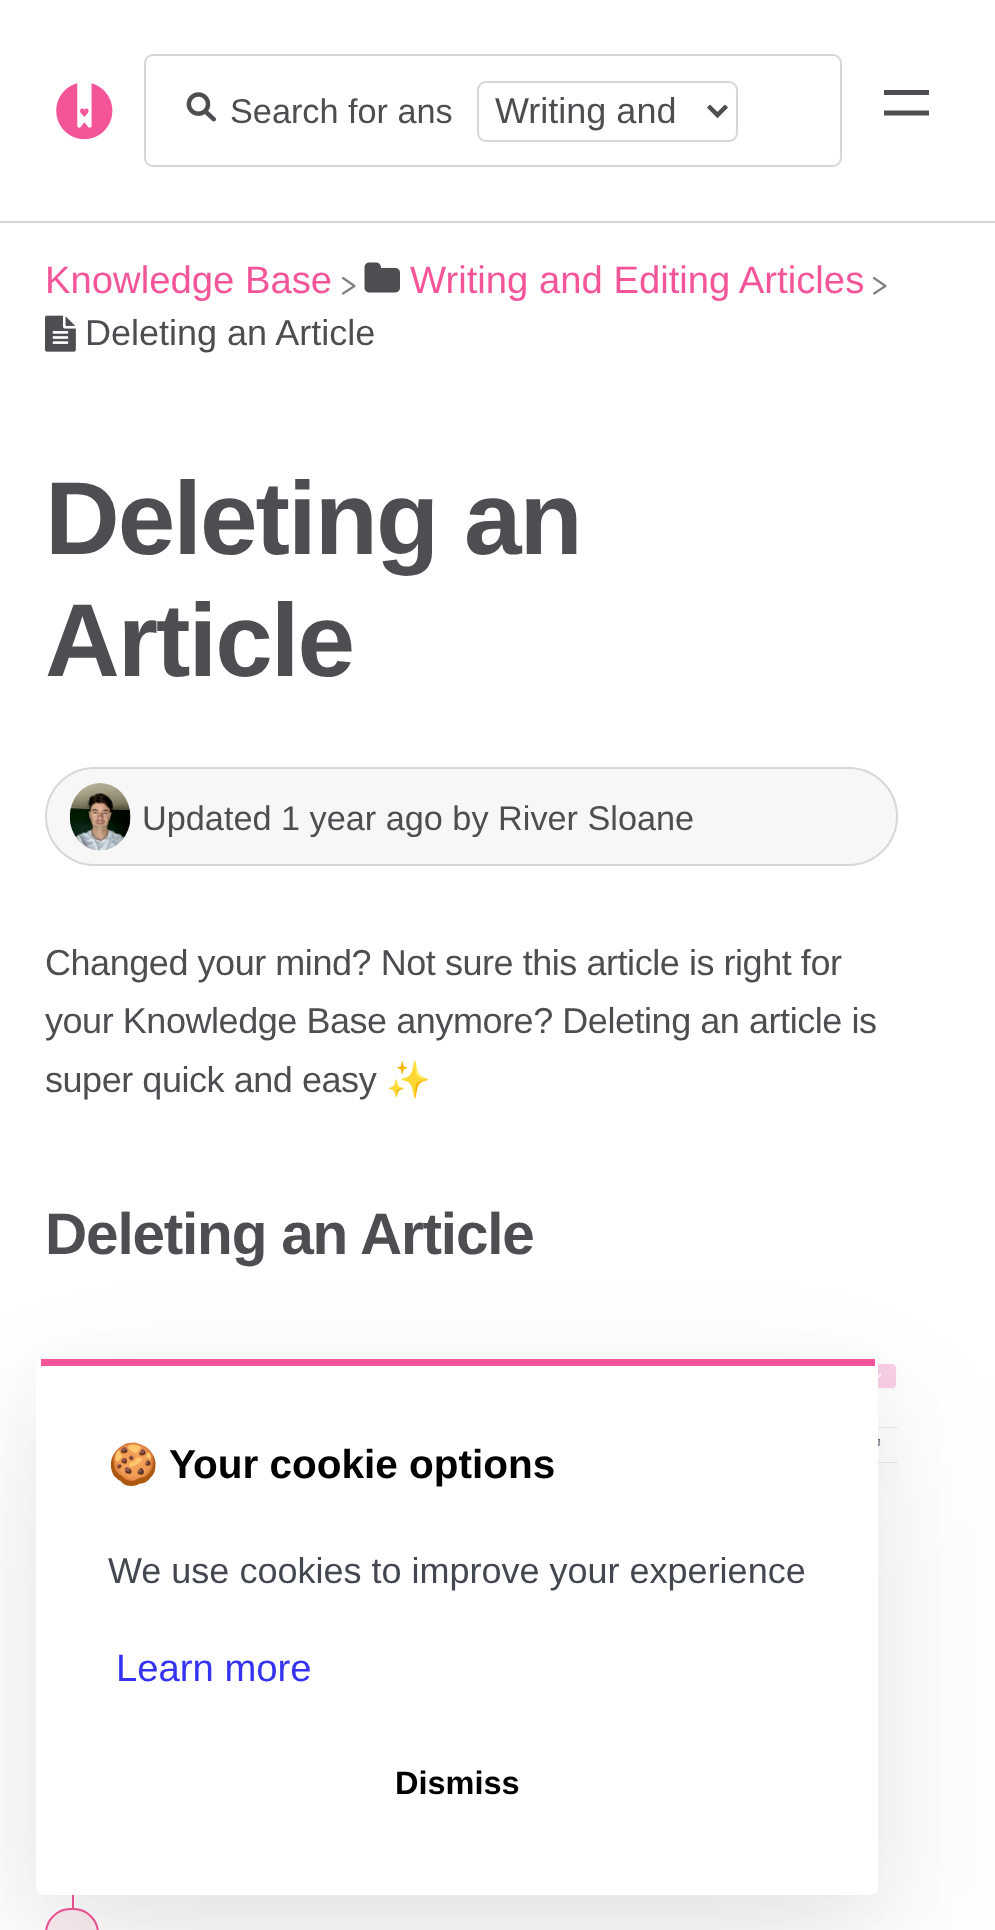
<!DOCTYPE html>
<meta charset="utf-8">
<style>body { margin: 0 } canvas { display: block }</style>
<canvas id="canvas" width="995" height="1930"></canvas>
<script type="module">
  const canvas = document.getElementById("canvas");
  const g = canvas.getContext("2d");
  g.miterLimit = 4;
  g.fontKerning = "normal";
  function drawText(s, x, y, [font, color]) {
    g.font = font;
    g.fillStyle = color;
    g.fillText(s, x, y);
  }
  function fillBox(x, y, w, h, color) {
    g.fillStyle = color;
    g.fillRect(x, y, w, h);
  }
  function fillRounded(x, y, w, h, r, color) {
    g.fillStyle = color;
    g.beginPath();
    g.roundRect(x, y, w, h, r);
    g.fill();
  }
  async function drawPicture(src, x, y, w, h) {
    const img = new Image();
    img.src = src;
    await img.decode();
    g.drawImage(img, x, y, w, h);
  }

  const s1 = ["34.25px Liberation Sans", "#4C4E52"];
  const s2 = ["36px Liberation Sans", "#4C4E52"];
  const s3 = ["38.25px Liberation Sans", "#F45599"];
  const s4 = ["bold 103.5px Liberation Sans", "#4C4E52"];
  const s5 = ["36px Noto Color Emoji", "#4C4E52"];
  const s6 = ["bold 58.5px Liberation Sans", "#4C4E52"];
  const s7 = ["bold 40.5px Noto Color Emoji", "#000000"];
  const s8 = ["bold 40.5px Liberation Sans", "#000000"];
  const s9 = ["36px Liberation Sans", "#424750"];
  const s10 = ["38.25px Liberation Sans", "#3333F1"];
  const s11 = ["bold 32.5px Liberation Sans", "#000000"];

  fillBox(0, 0, 995, 1930, "#FFFFFF");
  await drawPicture("pic1.png", 56, 83, 57, 57);
  g.beginPath();
  g.roundRect(145, 55, 696, 111, 8);
  g.strokeStyle = "#D7D7D7";
  g.lineWidth = 2;
  g.stroke();
  await drawPicture("pic2.png", 186, 92, 30, 30);
  drawText("Search for ans", 230, 123, s1);
  g.beginPath();
  g.roundRect(478, 82, 259, 59, 8);
  g.stroke();
  g.beginPath();
  g.moveTo(708.5, 106);
  g.lineTo(717.5, 115);
  g.lineTo(726.5, 106);
  g.strokeStyle = "#4C4E52";
  g.lineWidth = 4.5;
  g.stroke();
  drawText("Writing and", 495, 123, s2);
  fillBox(884, 90, 45, 5, "#4C4E52");
  g.save();
  g.beginPath();
  g.rect(884, 90, 45, 32);
  g.clip();
  g.beginPath();
  g.moveTo(884, 113);
  g.lineTo(934, 113);
  g.lineWidth = 5;
  g.stroke();
  g.restore();
  fillBox(0, 221, 995, 2, "#D7D7D7");
  drawText("Knowledge Base", 45, 293, s3);
  g.beginPath();
  g.moveTo(343, 278);
  g.lineTo(354.5, 286);
  g.lineTo(343, 293.5);
  g.strokeStyle = "#808080";
  g.lineWidth = 2.2;
  g.lineCap = "round";
  g.lineJoin = "round";
  g.stroke();
  await drawPicture("pic3.png", 364, 262, 36, 31);
  drawText("Writing and Editing Articles", 410, 293, s3);
  g.beginPath();
  g.moveTo(874, 278);
  g.lineTo(885.5, 286);
  g.lineTo(874, 293.5);
  g.stroke();
  await drawPicture("pic4.png", 45, 315, 31, 37);
  drawText("Deleting an Article", 85, 345, s2);
  g.letterSpacing = "-2px";
  drawText("Deleting an", 45, 554, s4);
  drawText("Article", 45, 676, s4);
  g.fillStyle = "#F7F7F7";
  g.beginPath();
  g.roundRect(46, 768, 851, 97, 48.5);
  g.fill();
  g.strokeStyle = "#D7D7D7";
  g.lineWidth = 2;
  g.lineJoin = "miter";
  g.stroke();
  await drawPicture("pic5.png", 69, 783, 62, 68);
  g.letterSpacing = "0px";
  drawText("Updated 1 year ago by River Sloane", 142, 830, s1);
  g.letterSpacing = "-0.45px";
  drawText("Changed your mind? Not sure this article is right for", 45, 975, s2);
  drawText("your Knowledge Base anymore? Deleting an article is", 45, 1033, s2);
  drawText("super quick and easy", 45, 1092, s2);
  drawText("✨", 386, 1092, s5);
  g.letterSpacing = "-1.2px";
  drawText("Deleting an Article", 45, 1254, s6);
  await drawPicture("pic6.png", 877, 1364, 21, 124);
  fillBox(72, 1895, 2, 14, "#F45599");
  g.fillStyle = "#FDEEF4";
  g.beginPath();
  g.roundRect(46, 1909, 52, 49, 26);
  g.fill();
  g.strokeStyle = "#F45599";
  g.stroke();
  g.fillStyle = "rgba(0, 0, 0, 0.07)";
  g.filter = "blur(90px)";
  g.beginPath();
  g.roundRect(36, 1440, 842, 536, 7);
  g.fill();
  g.filter = "none";
  g.fillStyle = "rgba(0, 0, 0, 0.05)";
  g.filter = "blur(37.5px)";
  g.beginPath();
  g.roundRect(36, 1375, 842, 535, 7);
  g.fill();
  g.filter = "none";
  fillRounded(36, 1359, 842, 536, 7, "#FFFFFF");
  fillBox(41, 1359, 834, 7, "#F45599");
  g.letterSpacing = "0px";
  drawText("🍪", 108, 1478, s7);
  drawText("Your cookie options", 169, 1478, s8);
  drawText("We use cookies to improve your experience", 108, 1583, s9);
  drawText("Learn more", 116, 1681, s10);
  drawText("Dismiss", 395, 1794, s11);
</script>
